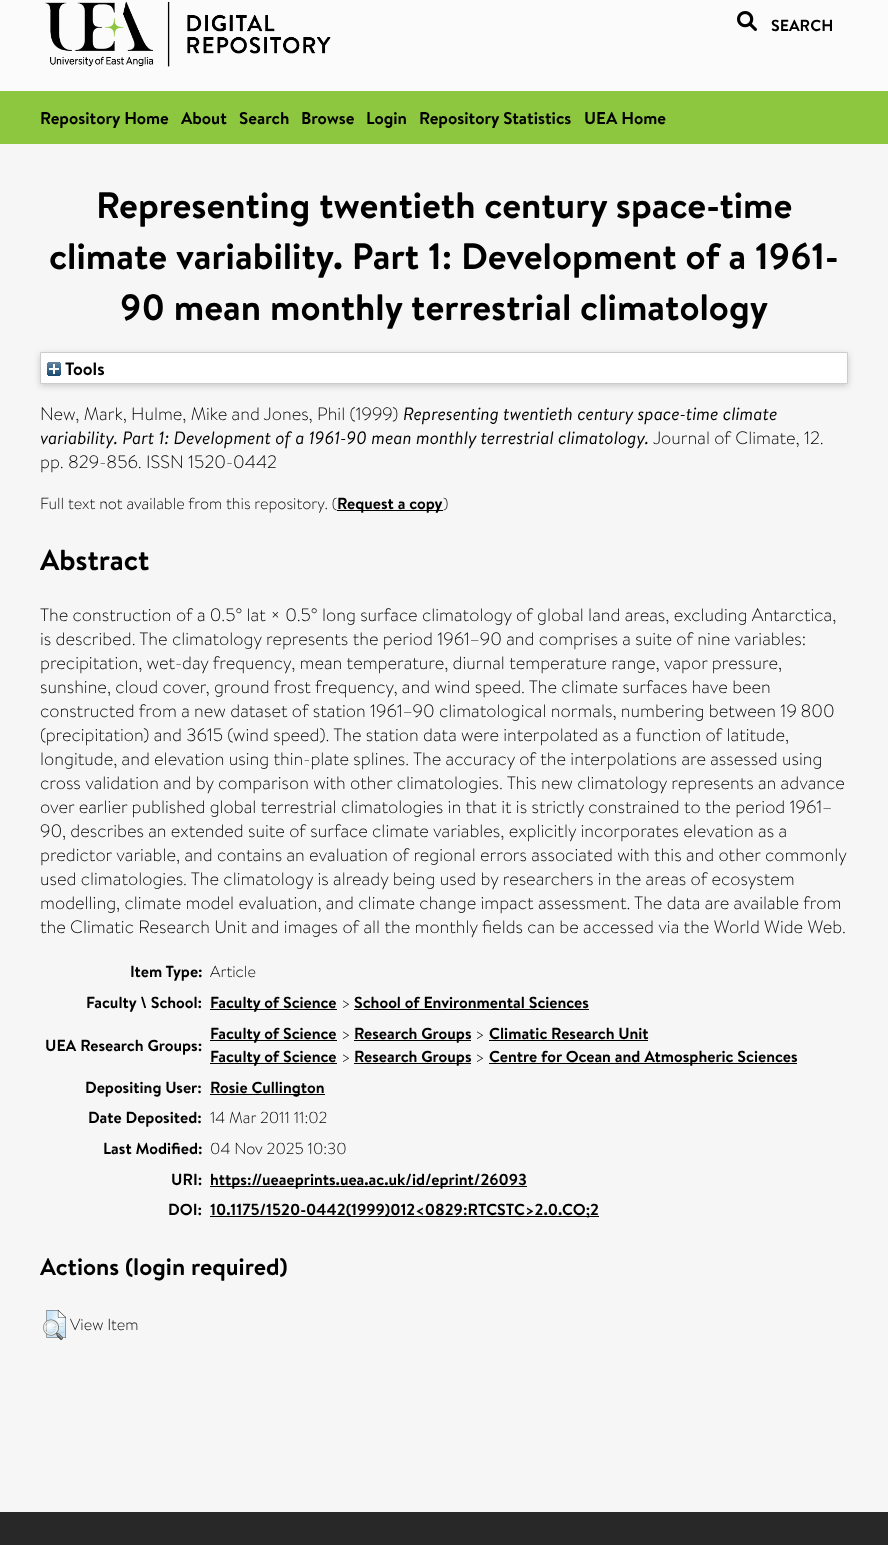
<!DOCTYPE html>
<meta charset="utf-8">
<style>body { margin: 0 } canvas { display: block }</style>
<canvas id="canvas" width="888" height="1545"></canvas>
<script type="module">
  const canvas = document.getElementById("canvas");
  const g = canvas.getContext("2d");
  g.miterLimit = 4;
  g.fontKerning = "normal";
  function drawText(s, x, y, [font, color]) {
    g.font = font;
    g.fillStyle = color;
    g.fillText(s, x, y);
  }
  function fillBox(x, y, w, h, color) {
    g.fillStyle = color;
    g.fillRect(x, y, w, h);
  }
  async function drawPicture(src, x, y, w, h) {
    const img = new Image();
    img.src = src;
    await img.decode();
    g.drawImage(img, x, y, w, h);
  }

  const s1 = ["bold 16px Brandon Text", "#000000"];
  const s2 = ["bold 17px Brandon Text", "#000000"];
  const s3 = ["bold 36.8px Brandon Text", "#000000"];
  const s4 = ["bold 18px Brandon Text", "#000000"];
  const s5 = ["300 18px Brandon Text", "#000000"];
  const s6 = ["italic 18px Brandon Text", "#000000"];
  const s7 = ["300 16px Brandon Text", "#000000"];
  const s8 = ["bold 29px Brandon Text", "#000000"];
  const s9 = ["bold 24px Brandon Text", "#000000"];

  fillBox(0, 0, 888, 1545, "#F6F6F6");
  fillBox(0, 0, 888, 91, "#FBFBFB");
  await drawPicture("pic1.png", 45, 1, 286, 66);
  await drawPicture("pic2.png", 737, 11, 20, 20);
  drawText("SEARCH", 771, 31, s1);
  fillBox(0, 91, 888, 53, "#8DC63F");
  drawText("Repository Home", 40, 124, s2);
  drawText("About", 181, 124, s2);
  drawText("Search", 239, 124, s2);
  drawText("Browse", 301, 124, s2);
  drawText("Login", 366, 124, s2);
  drawText("Repository Statistics", 419, 124, s2);
  drawText("UEA Home", 584, 124, s2);
  drawText("Representing twentieth century space-time", 96, 218, s3);
  drawText("climate variability. Part 1: Development of a 1961-", 49, 269, s3);
  drawText("90 mean monthly terrestrial climatology", 120, 320, s3);
  g.fillStyle = "rgba(100, 100, 100, 0.3)";
  g.filter = "blur(3px)";
  g.beginPath();
  g.rect(40, 354, 808, 32);
  g.fill();
  g.filter = "none";
  g.fillStyle = "#FFFFFF";
  g.beginPath();
  g.rect(40.5, 352.5, 807, 31);
  g.fill();
  g.strokeStyle = "#CCCCCC";
  g.stroke();
  await drawPicture("pic3.png", 47, 362, 14, 14);
  drawText("Tools", 65, 375, s4);
  drawText("New, Mark, Hulme, Mike and Jones, Phil (1999)", 40, 420, s5);
  drawText("Representing twentieth century space-time climate", 403, 420, s6);
  drawText("variability. Part 1: Development of a 1961-90 mean monthly terrestrial climatology.", 40, 444, s6);
  drawText("Journal of Climate, 12.", 653, 444, s5);
  drawText("pp. 829-856. ISSN 1520-0442", 40, 468, s5);
  drawText("Full text not available from this repository. (", 40, 509, s7);
  fillBox(337, 510, 106, 1, "#000000");
  drawText("Request a copy", 337, 509, s1);
  drawText(")", 443, 509, s7);
  drawText("Abstract", 40, 570, s8);
  drawText("The construction of a 0.5° lat × 0.5° long surface climatology of global land areas, excluding Antarctica,", 40, 621, s5);
  drawText("is described. The climatology represents the period 1961–90 and comprises a suite of nine variables:", 40, 645, s5);
  drawText("precipitation, wet-day frequency, mean temperature, diurnal temperature range, vapor pressure,", 40, 669, s5);
  drawText("sunshine, cloud cover, ground frost frequency, and wind speed. The climate surfaces have been", 40, 693, s5);
  drawText("constructed from a new dataset of station 1961–90 climatological normals, numbering between 19 800", 40, 717, s5);
  drawText("(precipitation) and 3615 (wind speed). The station data were interpolated as a function of latitude,", 40, 741, s5);
  drawText("longitude, and elevation using thin-plate splines. The accuracy of the interpolations are assessed using", 40, 765, s5);
  drawText("cross validation and by comparison with other climatologies. This new climatology represents an advance", 40, 789, s5);
  drawText("over earlier published global terrestrial climatologies in that it is strictly constrained to the period 1961–", 40, 813, s5);
  drawText("90, describes an extended suite of surface climate variables, explicitly incorporates elevation as a", 40, 837, s5);
  drawText("predictor variable, and contains an evaluation of regional errors associated with this and other commonly", 40, 861, s5);
  drawText("used climatologies. The climatology is already being used by researchers in the areas of ecosystem", 40, 885, s5);
  drawText("modelling, climate model evaluation, and climate change impact assessment. The data are available from", 40, 909, s5);
  drawText("the Climatic Research Unit and images of all the monthly fields can be accessed via the World Wide Web.", 40, 933, s5);
  drawText("Item Type:", 130, 977, s1);
  drawText("Article", 210, 977, s7);
  drawText("Faculty \\ School:", 86, 1008, s1);
  fillBox(210, 1009, 127, 1, "#000000");
  drawText("Faculty of Science", 210, 1008, s1);
  drawText(">", 341, 1008, s7);
  drawText("School of Environmental Sciences", 354, 1008, s1);
  fillBox(354, 1009, 235, 1, "#000000");
  drawText("UEA Research Groups:", 45, 1051, s1);
  fillBox(210, 1040, 127, 1, "#000000");
  drawText("Faculty of Science", 210, 1039, s1);
  drawText(">", 341, 1039, s7);
  fillBox(354, 1040, 117, 1, "#000000");
  drawText("Research Groups", 354, 1039, s1);
  drawText(">", 475, 1039, s7);
  drawText("Climatic Research Unit", 489, 1039, s1);
  fillBox(489, 1040, 159, 1, "#000000");
  fillBox(210, 1063, 127, 1, "#000000");
  drawText("Faculty of Science", 210, 1062, s1);
  drawText(">", 341, 1062, s7);
  fillBox(354, 1063, 117, 1, "#000000");
  drawText("Research Groups", 354, 1062, s1);
  drawText(">", 475, 1062, s7);
  fillBox(489, 1063, 308, 1, "#000000");
  drawText("Centre for Ocean and Atmospheric Sciences", 489, 1062, s1);
  drawText("Depositing User:", 85, 1093, s1);
  fillBox(210, 1094, 115, 1, "#000000");
  drawText("Rosie Cullington", 210, 1093, s1);
  drawText("Date Deposited:", 88, 1123, s1);
  drawText("14 Mar 2011 11:02", 210, 1123, s7);
  drawText("Last Modified:", 103, 1154, s1);
  drawText("04 Nov 2025 10:30", 210, 1154, s7);
  drawText("URI:", 171, 1185, s1);
  fillBox(210, 1186, 317, 1, "#000000");
  drawText("https://ueaeprints.uea.ac.uk/id/eprint/26093", 210, 1185, s1);
  drawText("DOI:", 168, 1215, s1);
  fillBox(210, 1216, 389, 1, "#000000");
  drawText("10.1175/1520-0442(1999)012<0829:RTCSTC>2.0.CO;2", 210, 1215, s1);
  drawText("Actions (login required)", 40, 1275, s9);
  await drawPicture("pic4.png", 43, 1310, 23, 30);
  drawText("View Item", 70, 1330, s7);
  fillBox(0, 1512, 888, 33, "#282828");
</script>
